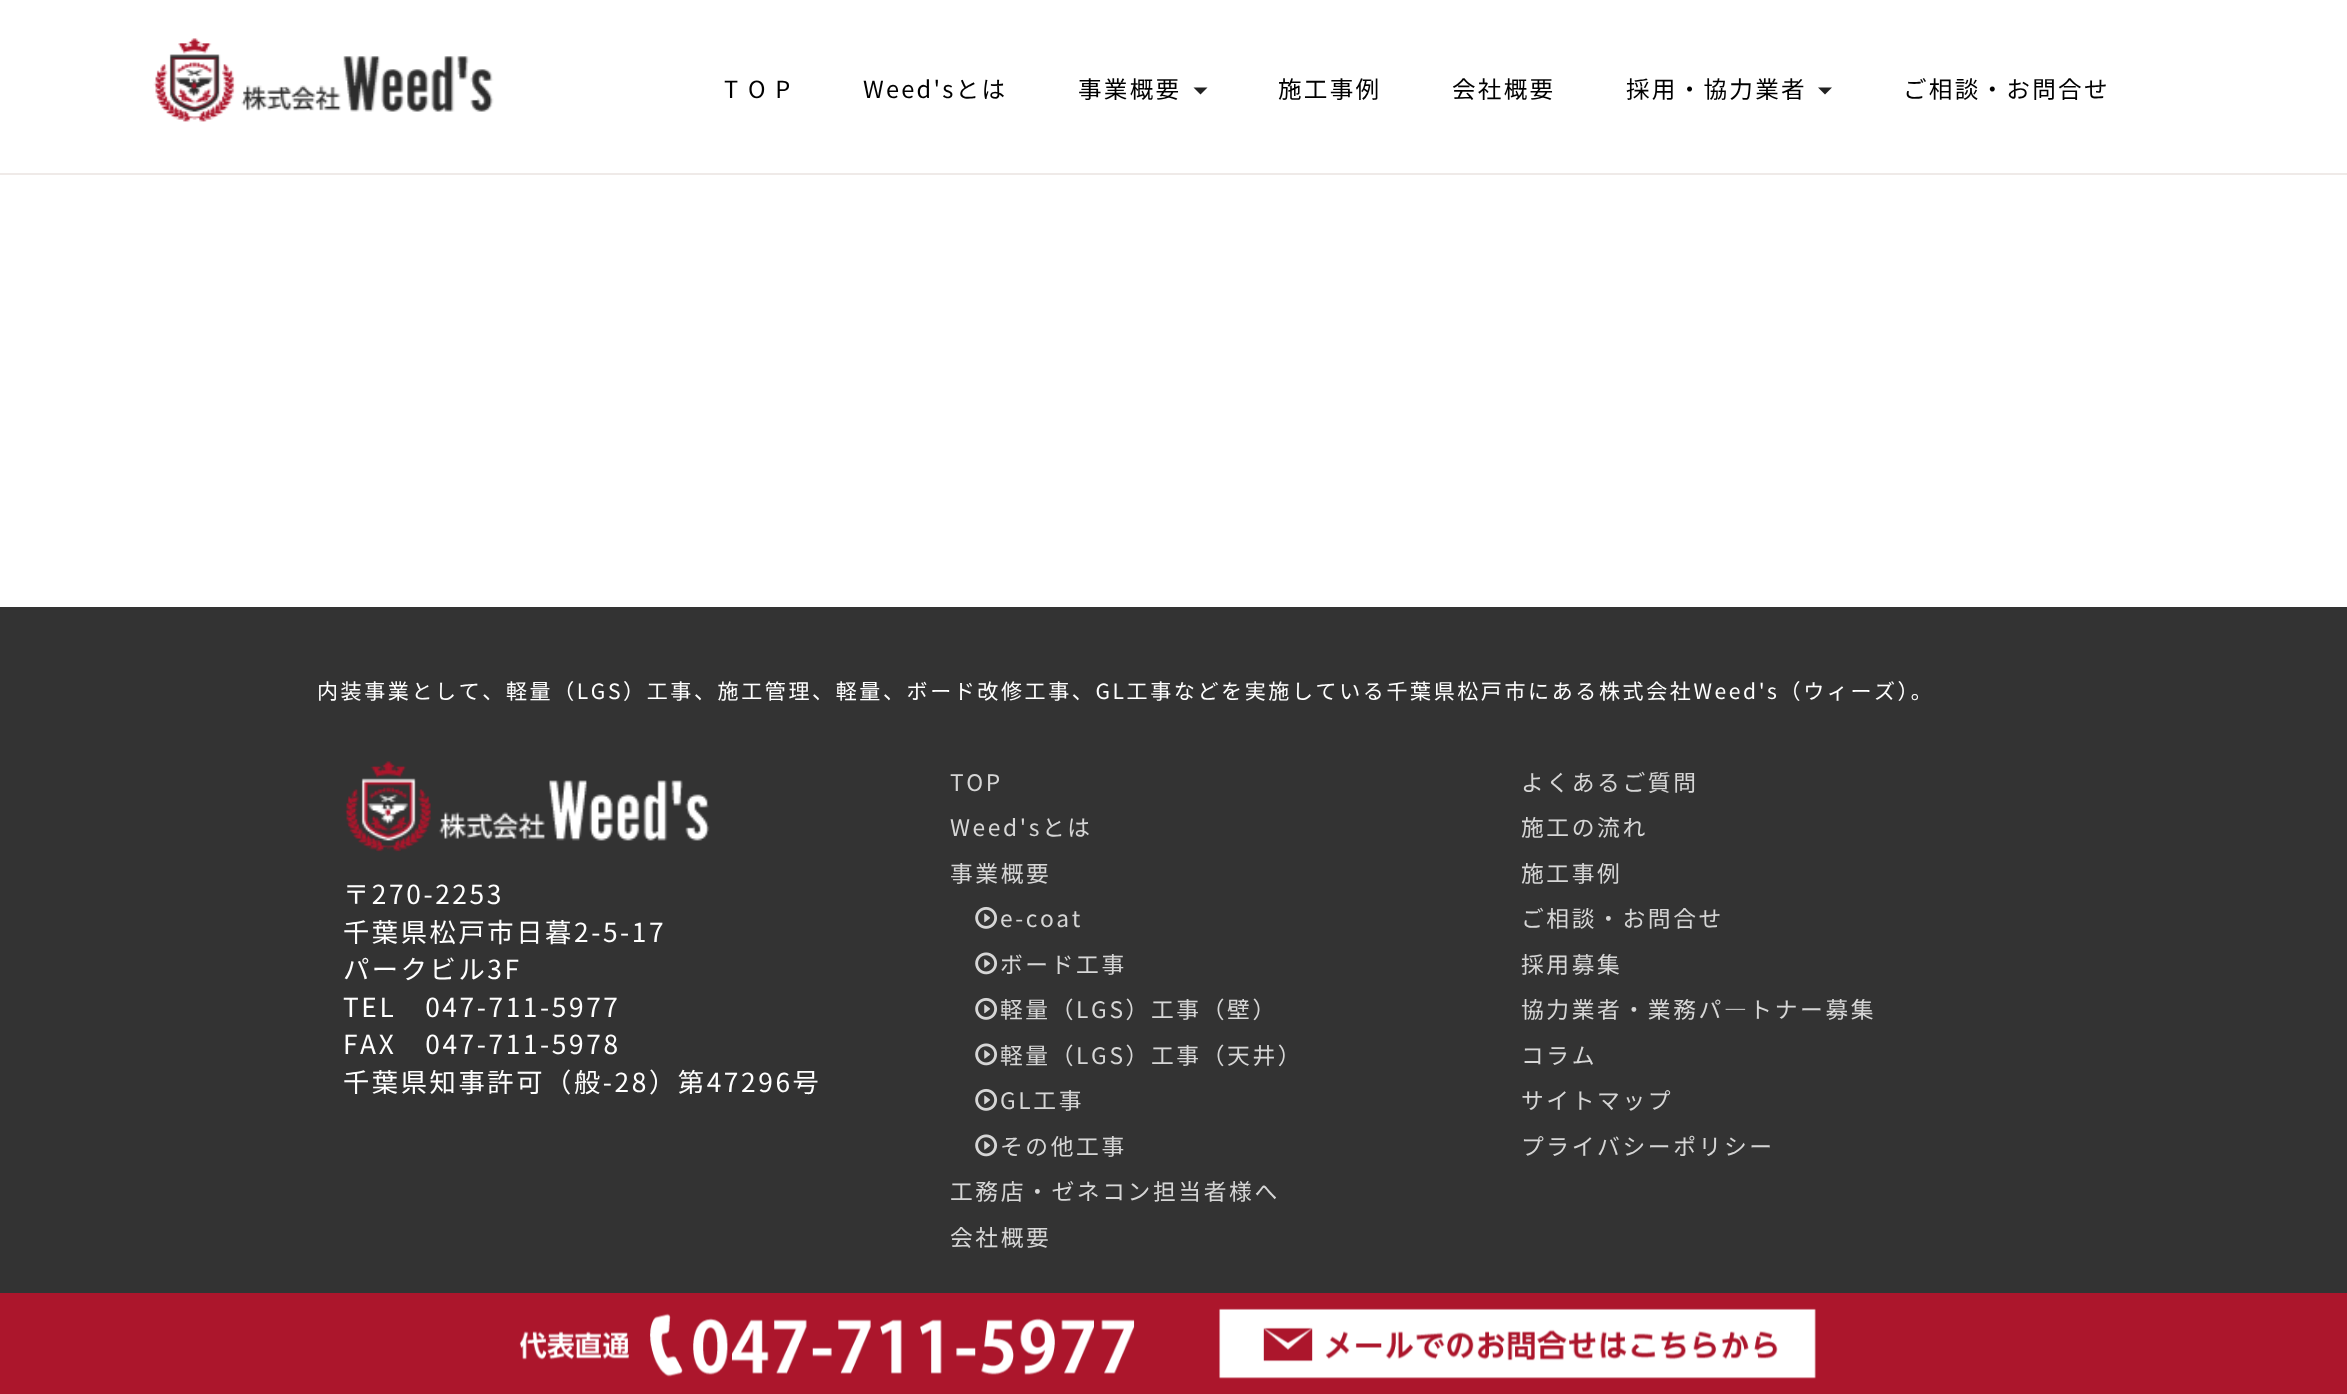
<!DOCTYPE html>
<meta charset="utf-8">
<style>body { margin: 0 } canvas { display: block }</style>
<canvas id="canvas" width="2347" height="1394"></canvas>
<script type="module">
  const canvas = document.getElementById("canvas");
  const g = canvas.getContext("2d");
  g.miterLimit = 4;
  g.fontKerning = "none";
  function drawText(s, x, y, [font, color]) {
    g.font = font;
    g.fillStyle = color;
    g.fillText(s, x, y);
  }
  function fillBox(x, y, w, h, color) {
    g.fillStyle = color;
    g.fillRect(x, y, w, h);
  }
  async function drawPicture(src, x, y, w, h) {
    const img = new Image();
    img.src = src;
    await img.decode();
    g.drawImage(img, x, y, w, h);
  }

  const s1 = ["100 23.6px Noto Sans JP", "#000000"];
  const s2 = ["100 21px Noto Sans JP", "#FFFFFF"];
  const s3 = ["100 26.25px Noto Sans JP", "#FFFFFF"];
  const s4 = ["100 22.75px Noto Sans JP", "#D6D6D6"];

  fillBox(0, 0, 2347, 1394, "#FFFFFF");
  fillBox(0, 173, 2347, 2, "#EFEAE8");
  await drawPicture("pic1.png", 153, 38, 341, 84);
  g.letterSpacing = "2.25px";
  drawText("T O P", 724, 98, s1);
  drawText("Weed'sとは", 863, 98, s1);
  drawText("事業概要", 1078, 98, s1);
  g.fillStyle = "#222222";
  g.beginPath();
  g.moveTo(1193.5, 87.5);
  g.lineTo(1207.5, 87.5);
  g.lineTo(1200.5, 94.5);
  g.closePath();
  g.fill();
  drawText("施工事例", 1278, 98, s1);
  drawText("会社概要", 1452, 98, s1);
  drawText("採用・協力業者", 1626, 98, s1);
  g.fillStyle = "#222222";
  g.beginPath();
  g.moveTo(1818, 87.5);
  g.lineTo(1832, 87.5);
  g.lineTo(1825, 94.5);
  g.closePath();
  g.fill();
  drawText("ご相談・お問合せ", 1903, 98, s1);
  fillBox(0, 607, 2347, 686, "#333333");
  g.letterSpacing = "2.62px";
  drawText("内装事業として、軽量（LGS）工事、施工管理、軽量、ボード改修工事、GL工事などを実施している千葉県松戸市にある株式会社Weed's（ウィー", 317, 699, s2);
  drawText("ズ）。", 1874, 699, s2);
  await drawPicture("pic2.png", 344, 761, 366, 91);
  drawText("〒270-2253", 343, 904, s3);
  drawText("千葉県松戸市日暮2-5-17", 343, 942, s3);
  drawText("パークビル3F", 343, 979, s3);
  drawText("TEL　047-711-5977", 343, 1017, s3);
  drawText("FAX　047-711-5978", 343, 1054, s3);
  drawText("千葉県知事許可（般-28）第47296号", 343, 1092, s3);
  drawText("TOP", 950, 791, s4);
  drawText("Weed'sとは", 950, 836, s4);
  drawText("事業概要", 950, 882, s4);
  await drawPicture("pic3.png", 975, 906, 23, 23);
  drawText("e-coat", 1000, 927, s4);
  await drawPicture("pic4.png", 975, 952, 23, 23);
  drawText("ボード工事", 1000, 973, s4);
  await drawPicture("pic3.png", 975, 997, 23, 23);
  drawText("軽量（LGS）工事（壁）", 1000, 1018, s4);
  await drawPicture("pic4.png", 975, 1043, 23, 23);
  drawText("軽量（LGS）工事（天井）", 1000, 1064, s4);
  await drawPicture("pic3.png", 975, 1088, 23, 23);
  drawText("GL工事", 1000, 1109, s4);
  await drawPicture("pic4.png", 975, 1134, 23, 23);
  drawText("その他工事", 1000, 1155, s4);
  drawText("工務店・ゼネコン担当者様へ", 950, 1200, s4);
  drawText("会社概要", 950, 1246, s4);
  drawText("よくあるご質問", 1521, 791, s4);
  drawText("施工の流れ", 1521, 836, s4);
  drawText("施工事例", 1521, 882, s4);
  drawText("ご相談・お問合せ", 1521, 927, s4);
  drawText("採用募集", 1521, 973, s4);
  drawText("協力業者・業務パ―トナー募集", 1521, 1018, s4);
  drawText("コラム", 1521, 1064, s4);
  drawText("サイトマップ", 1521, 1109, s4);
  drawText("プライバシーポリシー", 1521, 1155, s4);
  fillBox(0, 1293, 2347, 101, "#AC162C");
  await drawPicture("pic5.png", 519, 1313, 616, 64);
  await drawPicture("pic6.png", 1219, 1308, 597, 71);
</script>
